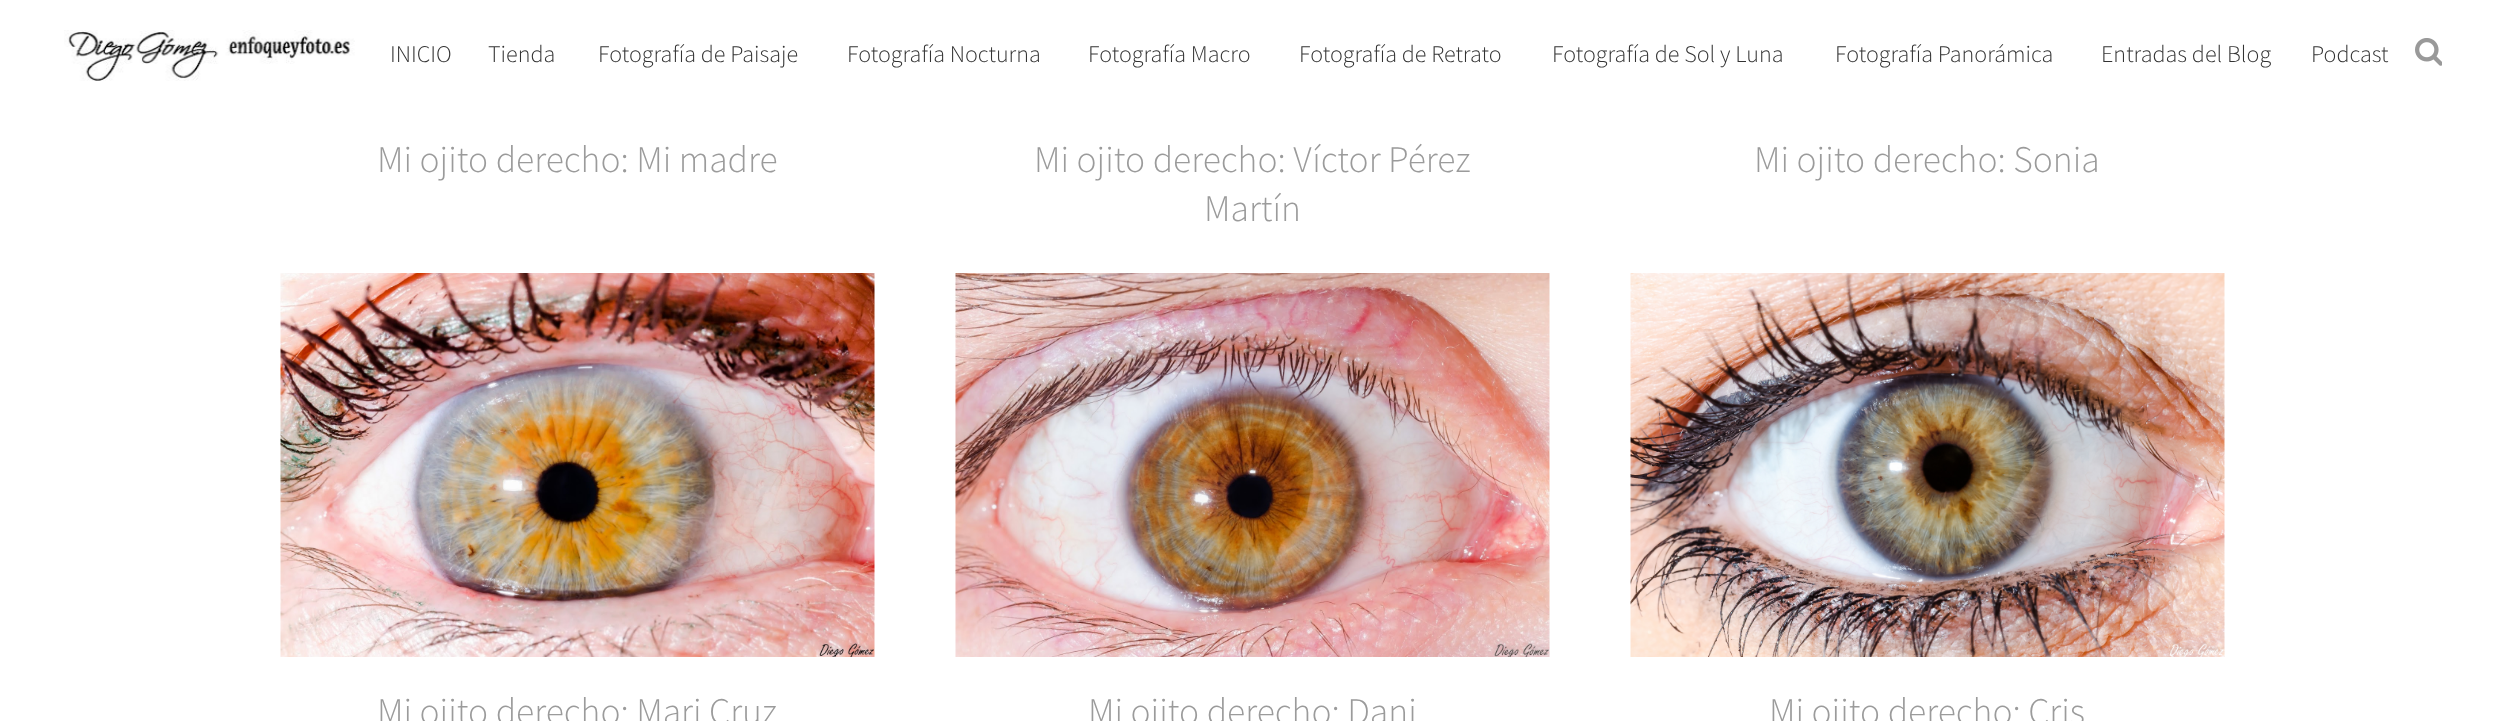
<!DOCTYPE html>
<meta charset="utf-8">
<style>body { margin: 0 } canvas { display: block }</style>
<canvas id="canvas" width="2504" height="721"></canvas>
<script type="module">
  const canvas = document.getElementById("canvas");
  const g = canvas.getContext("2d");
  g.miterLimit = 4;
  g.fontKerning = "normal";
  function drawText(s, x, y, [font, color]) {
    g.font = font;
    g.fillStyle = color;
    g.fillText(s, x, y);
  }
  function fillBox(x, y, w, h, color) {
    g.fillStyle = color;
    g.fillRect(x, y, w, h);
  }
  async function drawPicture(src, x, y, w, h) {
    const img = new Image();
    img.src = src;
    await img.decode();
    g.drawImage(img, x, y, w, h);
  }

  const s1 = ["300 24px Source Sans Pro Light", "#333333"];
  const s2 = ["300 37.5px Source Sans Pro Light", "#9B9B9B"];

  fillBox(0, 0, 2504, 721, "#FFFFFF");
  await drawPicture("pic1.png", 64, 30, 291, 51);
  drawText("INICIO", 390, 62, s1);
  drawText("Tienda", 488, 62, s1);
  drawText("Fotografía de Paisaje", 598, 62, s1);
  drawText("Fotografía Nocturna", 847, 62, s1);
  drawText("Fotografía Macro", 1088, 62, s1);
  drawText("Fotografía de Retrato", 1299, 62, s1);
  drawText("Fotografía de Sol y Luna", 1552, 62, s1);
  drawText("Fotografía Panorámica", 1835, 62, s1);
  drawText("Entradas del Blog", 2101, 62, s1);
  drawText("Podcast", 2311, 62, s1);
  await drawPicture("pic2.png", 2415, 38, 27, 28);
  drawText("Mi ojito derecho: Mi madre", 377, 172, s2);
  drawText("Mi ojito derecho: Víctor Pérez", 1034, 172, s2);
  drawText("Martín", 1204, 221, s2);
  drawText("Mi ojito derecho: Sonia", 1754, 172, s2);
  await drawPicture("pic3.png", 280, 273, 595, 384);
  drawText("Mi ojito derecho: Mari Cruz", 377, 724, s2);
  await drawPicture("pic4.png", 955, 273, 595, 384);
  drawText("Mi ojito derecho: Dani", 1088, 724, s2);
  await drawPicture("pic5.png", 1630, 273, 595, 384);
  drawText("Mi ojito derecho: Cris", 1769, 724, s2);
</script>
